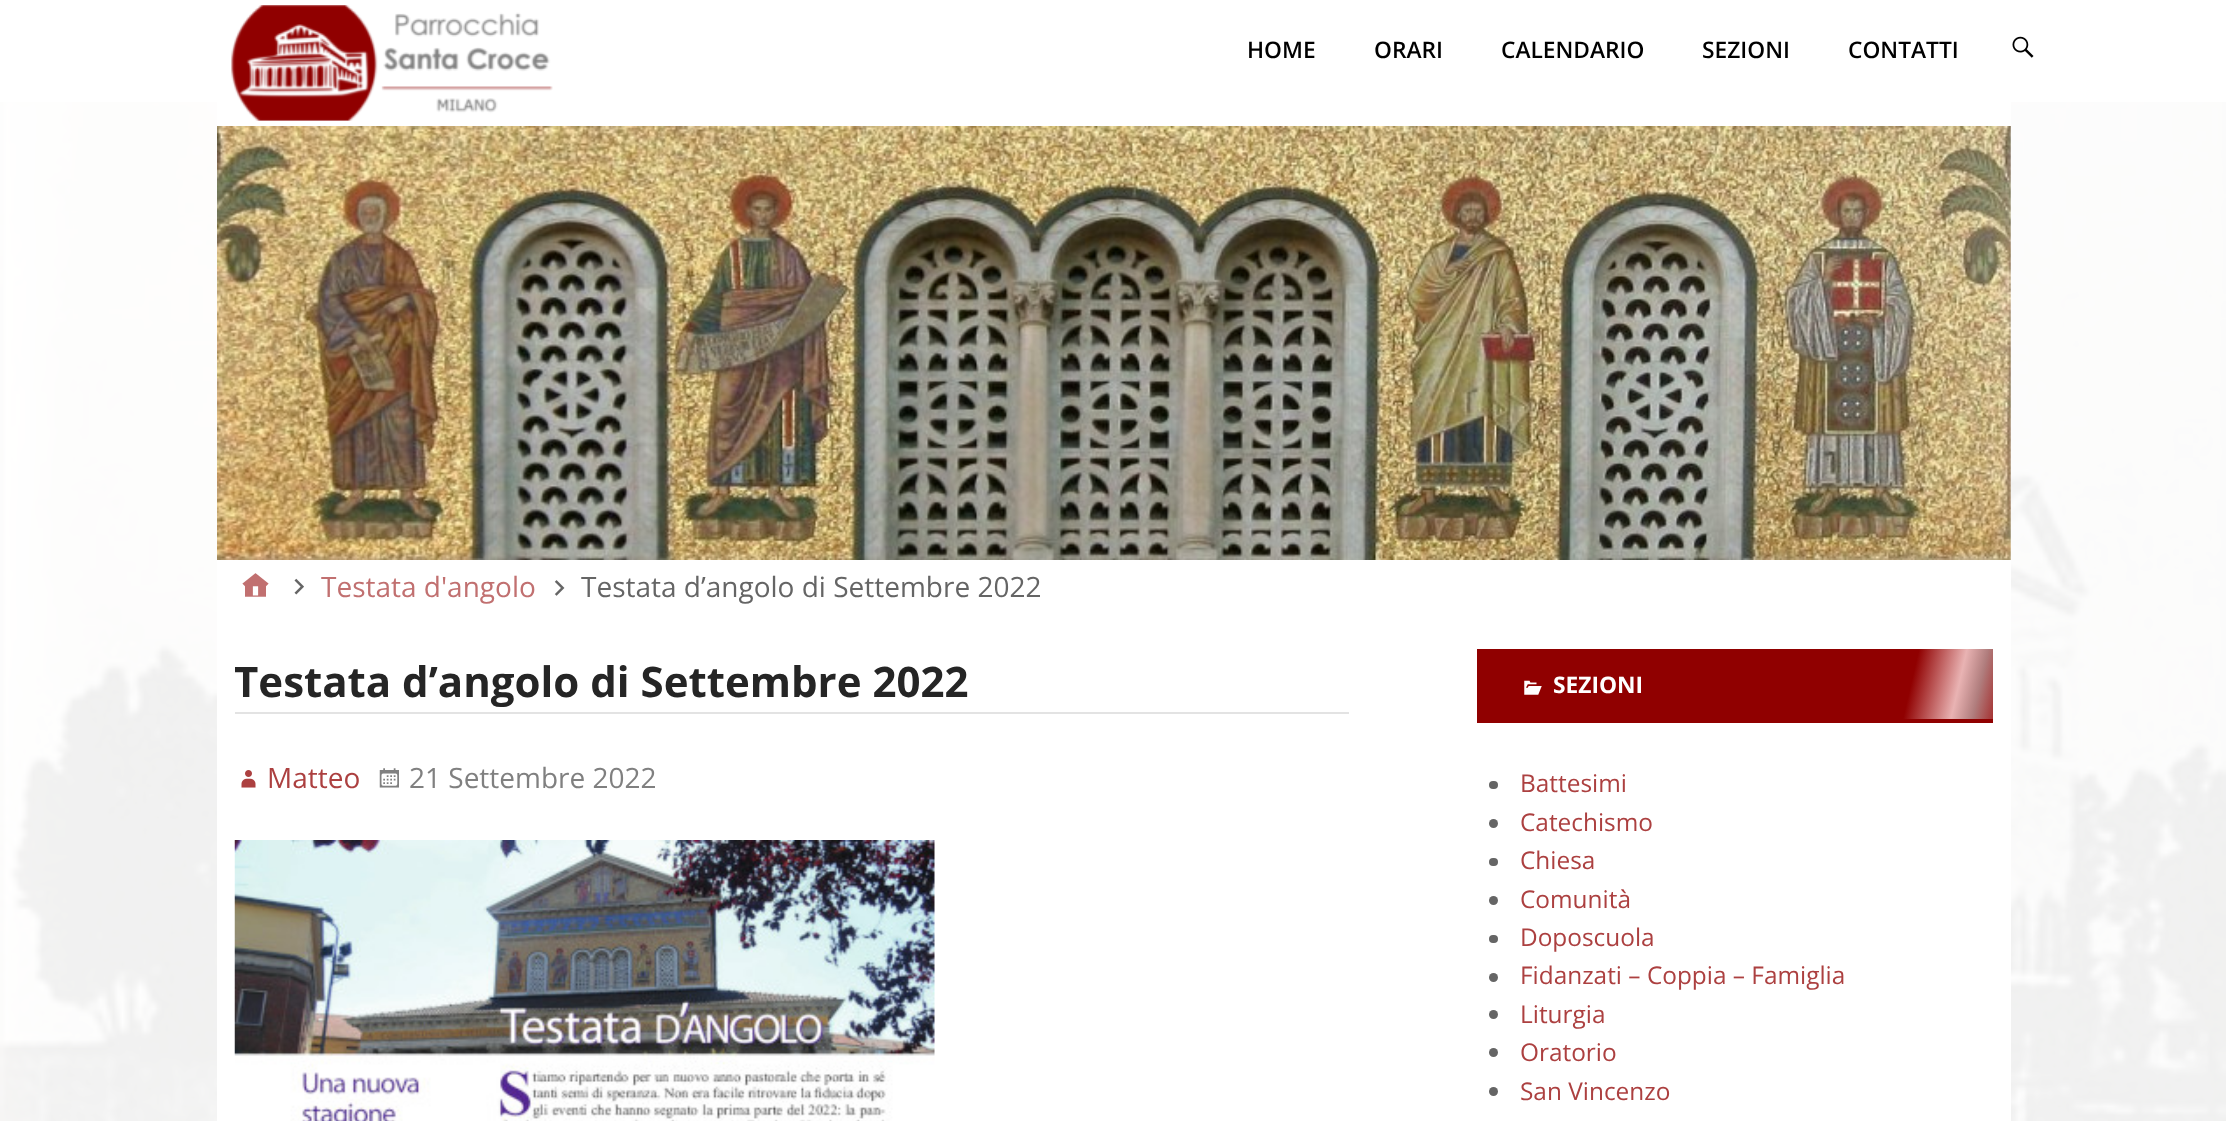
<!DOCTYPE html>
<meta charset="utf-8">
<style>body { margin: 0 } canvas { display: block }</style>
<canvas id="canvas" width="2226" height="1121"></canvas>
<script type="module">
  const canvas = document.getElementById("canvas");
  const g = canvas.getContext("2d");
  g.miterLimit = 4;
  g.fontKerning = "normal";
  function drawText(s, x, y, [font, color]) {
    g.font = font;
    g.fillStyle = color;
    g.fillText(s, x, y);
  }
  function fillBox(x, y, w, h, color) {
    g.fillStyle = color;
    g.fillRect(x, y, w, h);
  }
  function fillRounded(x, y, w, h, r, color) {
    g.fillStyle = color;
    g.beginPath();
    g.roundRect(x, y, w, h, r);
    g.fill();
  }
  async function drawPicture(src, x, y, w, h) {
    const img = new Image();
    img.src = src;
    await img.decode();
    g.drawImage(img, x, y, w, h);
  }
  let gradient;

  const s1 = ["600 22.75px Open Sans", "#000000"];
  const s2 = ["28px Open Sans", "#C17070"];
  const s3 = ["28px Open Sans", "#656565"];
  const s4 = ["bold 42px Open Sans", "#252525"];
  const s5 = ["28px Open Sans", "#AC4040"];
  const s6 = ["28px Open Sans", "#808080"];
  const s7 = ["bold 22.75px Open Sans", "#FFFFFF"];
  const s8 = ["24.4px Open Sans", "#AC4040"];

  fillBox(0, 0, 2226, 1121, "#FFFFFF");
  await drawPicture("pic1.png", 0, 102, 2226, 1019);
  drawText("HOME", 1247, 58, s1);
  drawText("ORARI", 1374, 58, s1);
  drawText("CALENDARIO", 1501, 58, s1);
  drawText("SEZIONI", 1702, 58, s1);
  drawText("CONTATTI", 1848, 58, s1);
  await drawPicture("pic2.png", 2012, 36, 22, 22);
  fillBox(217, 102, 1794, 1019, "#FFFFFF");
  await drawPicture("pic3.png", 231, 5, 322, 116);
  await drawPicture("pic4.png", 217, 126, 1794, 434);
  await drawPicture("pic5.png", 242, 573, 27, 24);
  await drawPicture("pic6.png", 294, 578, 10, 17);
  drawText("Testata d'angolo", 321, 597, s2);
  await drawPicture("pic7.png", 554, 580, 11, 16);
  drawText("Testata d’angolo di Settembre 2022", 581, 597, s3);
  fillBox(235, 712, 1114, 2, "#E3E3E3");
  g.save();
  g.beginPath();
  g.rect(235, 649, 1114, 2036);
  g.clip();
  drawText("Testata d’angolo di Settembre 2022", 234, 697, s4);
  g.restore();
  await drawPicture("pic8.png", 241, 770, 15, 18);
  drawText("Matteo", 267, 788, s5);
  await drawPicture("pic9.png", 379, 768, 20, 20);
  drawText("21 Settembre 2022", 409, 788, s6);
  await drawPicture("pic10.png", 234, 840, 701, 281);
  gradient = g.createLinearGradient(1482, 626, 1988, 743);
  gradient.addColorStop(0, "#900000");
  gradient.addColorStop(0.83, "#900000");
  gradient.addColorStop(0.92, "#E9B3B3");
  gradient.addColorStop(0.96, "#B07D7D");
  gradient.addColorStop(1, "#A53131");
  g.fillStyle = gradient;
  g.fillRect(1477, 649, 516, 70);
  fillBox(1477, 719, 516, 4, "#900000");
  await drawPicture("pic11.png", 1524, 680, 18, 15);
  drawText("SEZIONI", 1553, 693, s7);
  fillRounded(1489, 781, 9, 8, 4, "#656565");
  drawText("Battesimi", 1520, 792, s8);
  g.fillStyle = "#656565";
  g.beginPath();
  g.arc(1493.5, 823.5, 4.5, 0, Math.PI * 2);
  g.fill();
  drawText("Catechismo", 1520, 831, s8);
  fillRounded(1489, 858, 9, 8, 4, "#656565");
  drawText("Chiesa", 1520, 869, s8);
  g.fillStyle = "#656565";
  g.beginPath();
  g.arc(1493.5, 900.5, 4.5, 0, Math.PI * 2);
  g.fill();
  drawText("Comunità", 1520, 908, s8);
  fillRounded(1489, 935, 9, 8, 4, "#656565");
  drawText("Doposcuola", 1520, 946, s8);
  g.fillStyle = "#656565";
  g.beginPath();
  g.arc(1493.5, 977.5, 4.5, 0, Math.PI * 2);
  g.fill();
  drawText("Fidanzati – Coppia – Famiglia", 1520, 984, s8);
  g.fillStyle = "#656565";
  g.beginPath();
  g.arc(1493.5, 1014.5, 4.5, 0, Math.PI * 2);
  g.fill();
  drawText("Liturgia", 1520, 1023, s8);
  g.fillStyle = "#656565";
  g.beginPath();
  g.arc(1493.5, 1052.5, 4.5, 0, Math.PI * 2);
  g.fill();
  drawText("Oratorio", 1520, 1061, s8);
  g.fillStyle = "#656565";
  g.beginPath();
  g.arc(1493.5, 1091.5, 4.5, 0, Math.PI * 2);
  g.fill();
  drawText("San Vincenzo", 1520, 1100, s8);
</script>
